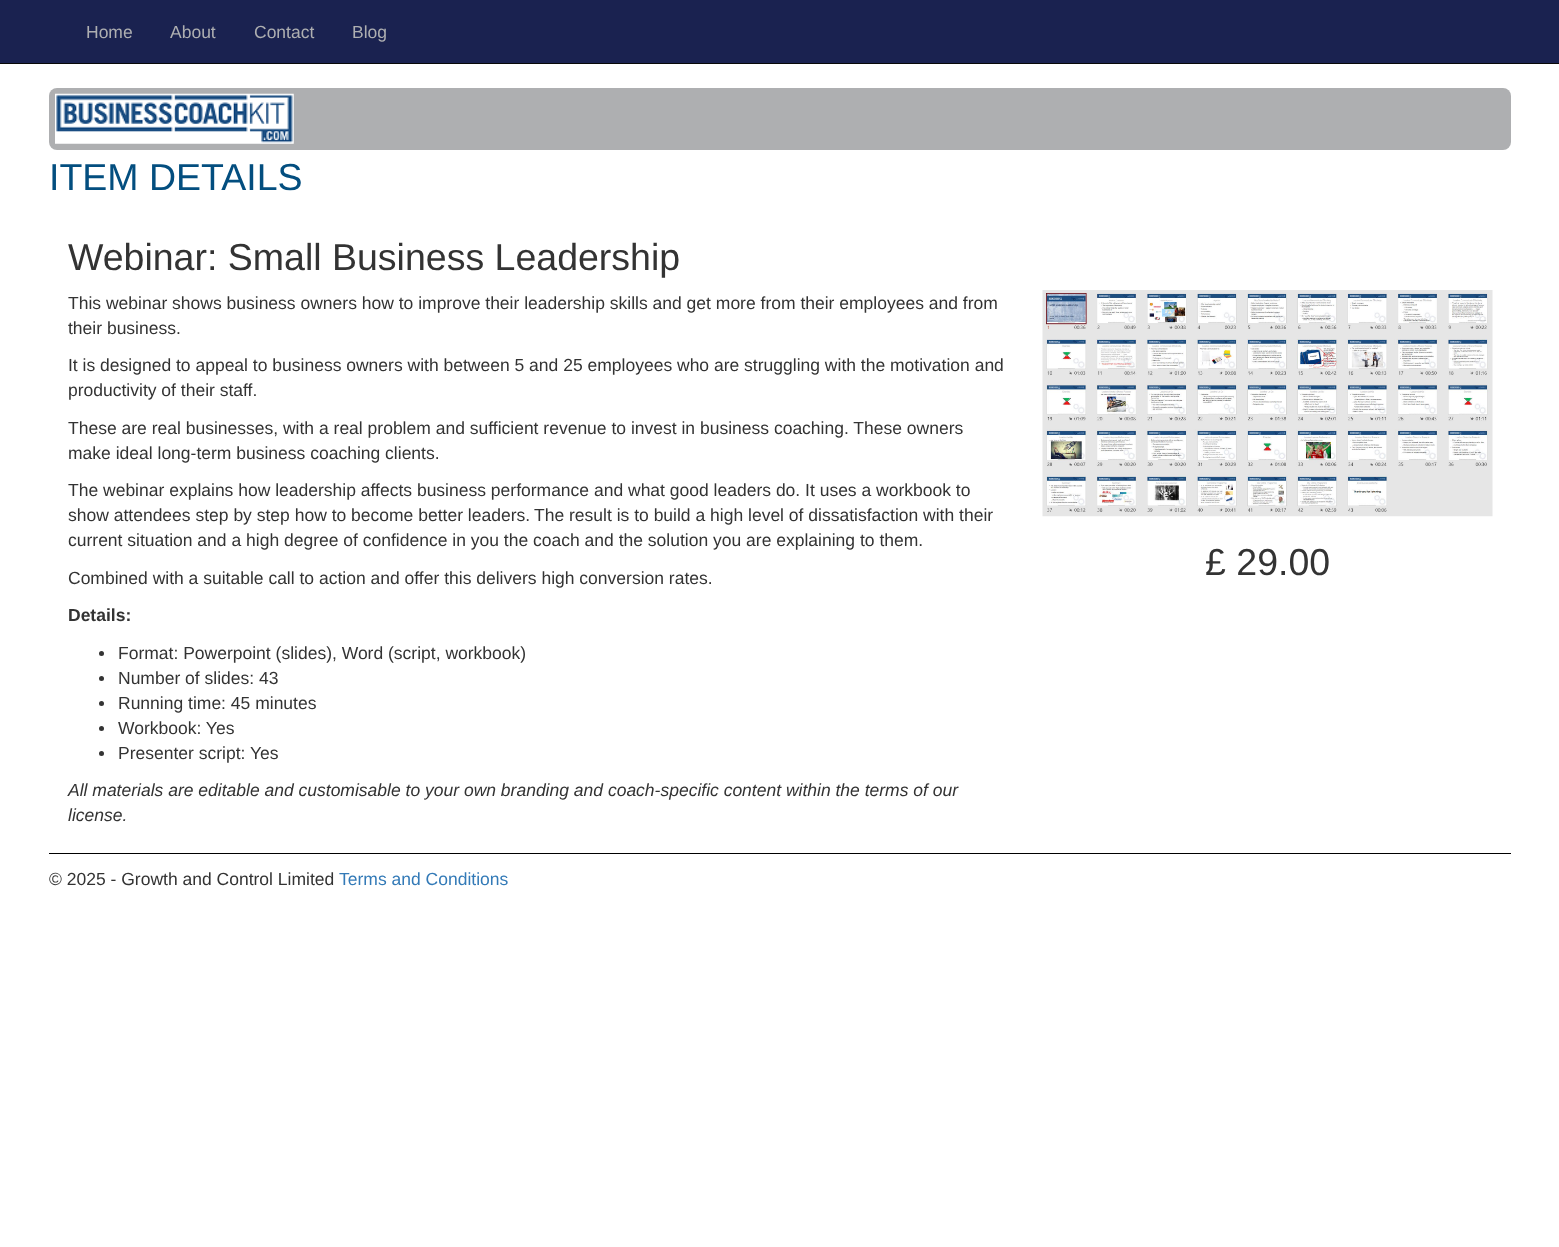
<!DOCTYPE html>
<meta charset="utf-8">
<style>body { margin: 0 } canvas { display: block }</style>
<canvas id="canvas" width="1559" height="1247"></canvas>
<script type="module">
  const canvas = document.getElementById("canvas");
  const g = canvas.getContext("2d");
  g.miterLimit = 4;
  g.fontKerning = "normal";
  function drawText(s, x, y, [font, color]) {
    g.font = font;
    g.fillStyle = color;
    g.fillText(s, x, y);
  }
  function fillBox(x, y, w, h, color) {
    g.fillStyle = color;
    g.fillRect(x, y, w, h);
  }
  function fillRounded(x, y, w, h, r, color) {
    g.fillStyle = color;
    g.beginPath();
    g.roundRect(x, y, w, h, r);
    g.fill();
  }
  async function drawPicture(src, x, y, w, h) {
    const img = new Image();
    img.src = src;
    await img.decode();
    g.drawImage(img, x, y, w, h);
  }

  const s1 = ["17.5px Liberation Sans", "#AEAFB1"];
  const s2 = ["37.5px Liberation Sans", "#034E7F"];
  const s3 = ["37.5px Liberation Sans", "#333333"];
  const s4 = ["17.5px Liberation Sans", "#333333"];
  const s5 = ["bold 17.5px Liberation Sans", "#333333"];
  const s6 = ["italic 17.5px Liberation Sans", "#333333"];
  const s7 = ["17.5px Liberation Sans", "#337AB7"];

  fillBox(0, 0, 1559, 1247, "#FFFFFF");
  fillBox(0, 0, 1559, 63, "#1A2250");
  fillBox(0, 63, 1559, 1, "#080808");
  drawText("Home", 86, 38, s1);
  drawText("About", 170, 38, s1);
  drawText("Contact", 254, 38, s1);
  drawText("Blog", 352, 38, s1);
  fillRounded(49, 88, 1462, 62, 8, "#AEAFB1");
  await drawPicture("pic1.png", 55, 93, 239, 51);
  drawText("ITEM DETAILS", 49, 190, s2);
  drawText("Webinar: Small Business Leadership", 68, 270, s3);
  drawText("This webinar shows business owners how to improve their leadership skills and get more from their employees and from", 68, 309, s4);
  drawText("their business.", 68, 334, s4);
  drawText("It is designed to appeal to business owners with between 5 and 25 employees who are struggling with the motivation and", 68, 371, s4);
  drawText("productivity of their staff.", 68, 396, s4);
  drawText("These are real businesses, with a real problem and sufficient revenue to invest in business coaching. These owners", 68, 434, s4);
  drawText("make ideal long-term business coaching clients.", 68, 459, s4);
  drawText("The webinar explains how leadership affects business performance and what good leaders do. It uses a workbook to", 68, 496, s4);
  drawText("show attendees step by step how to become better leaders.", 68, 521, s4);
  drawText("The result is to build a high level of dissatisfaction with their", 534, 521, s4);
  drawText("current situation and a high degree of confidence in you the coach and the solution you are explaining to them.", 68, 546, s4);
  drawText("Combined with a suitable call to action and offer this delivers high conversion rates.", 68, 584, s4);
  drawText("Details:", 68, 621, s5);
  g.beginPath();
  g.arc(101.5, 653.5, 2.5, 0, Math.PI * 2);
  g.fill();
  drawText("Format: Powerpoint (slides), Word (script, workbook)", 118, 659, s4);
  g.beginPath();
  g.arc(101.5, 678.5, 2.5, 0, Math.PI * 2);
  g.fill();
  drawText("Number of slides: 43", 118, 684, s4);
  g.beginPath();
  g.arc(101.5, 703.5, 2.5, 0, Math.PI * 2);
  g.fill();
  drawText("Running time: 45 minutes", 118, 709, s4);
  g.beginPath();
  g.arc(101.5, 728.5, 2.5, 0, Math.PI * 2);
  g.fill();
  drawText("Workbook: Yes", 118, 734, s4);
  g.beginPath();
  g.arc(101.5, 753.5, 2.5, 0, Math.PI * 2);
  g.fill();
  drawText("Presenter script: Yes", 118, 759, s4);
  drawText("All materials are editable and customisable to your own branding and coach-specific content within the terms of our", 68, 796, s6);
  drawText("license.", 68, 821, s6);
  await drawPicture("pic2.png", 1042, 290, 451, 227);
  drawText("£ 29.00", 1205, 575, s3);
  fillBox(49, 853, 1462, 1, "#000000");
  drawText("© 2025 - Growth and Control Limited", 49, 885, s4);
  drawText("Terms and Conditions", 339, 885, s7);
</script>
